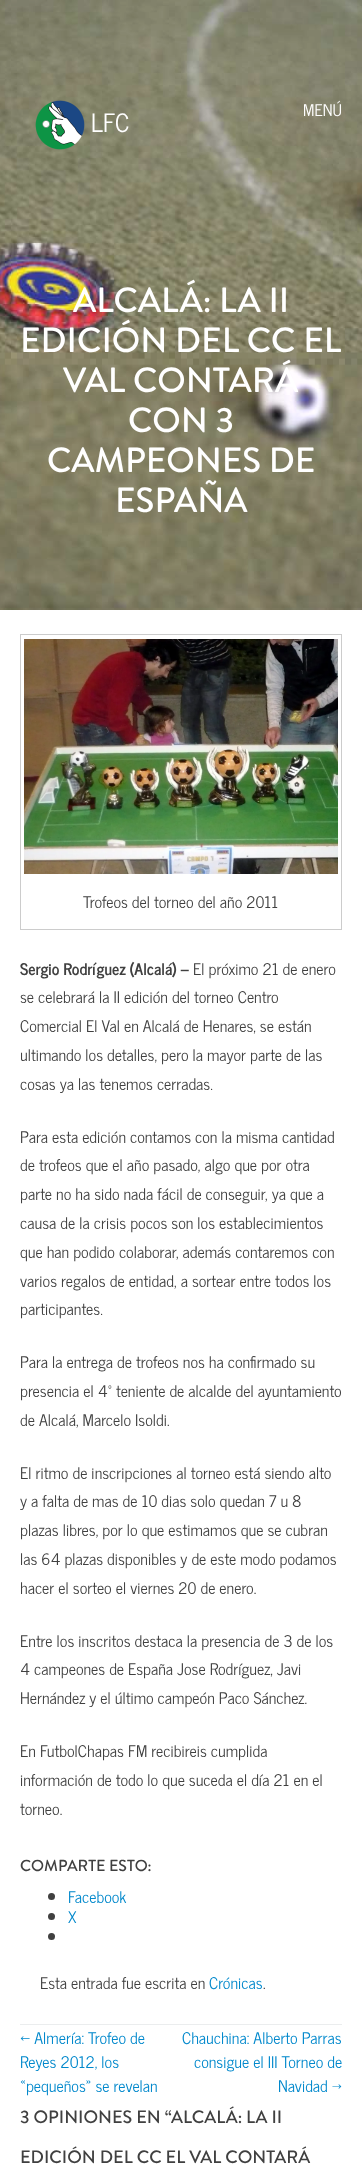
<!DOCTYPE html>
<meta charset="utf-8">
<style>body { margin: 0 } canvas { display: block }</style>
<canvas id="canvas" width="362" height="2183"></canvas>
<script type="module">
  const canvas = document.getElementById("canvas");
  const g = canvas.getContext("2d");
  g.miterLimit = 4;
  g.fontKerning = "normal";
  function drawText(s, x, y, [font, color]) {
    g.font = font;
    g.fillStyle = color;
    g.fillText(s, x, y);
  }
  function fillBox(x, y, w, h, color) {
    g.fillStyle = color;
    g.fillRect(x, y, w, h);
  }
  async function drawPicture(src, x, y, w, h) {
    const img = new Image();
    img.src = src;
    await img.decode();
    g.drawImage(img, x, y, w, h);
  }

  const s1 = ["16px News Cycle", "#FFFFFF"];
  const s2 = ["25px News Cycle", "#FFFFFF"];
  const s3 = ["500 35px Brandon Grotesque", "#FFFFFF"];
  const s4 = ["16px News Cycle", "#404040"];
  const s5 = ["bold 16px News Cycle", "#404040"];
  const s6 = ["500 16px Brandon Grotesque", "#404040"];
  const s7 = ["16px News Cycle", "#0088CC"];
  const s8 = ["500 18px Brandon Grotesque", "#404040"];

  fillBox(0, 0, 362, 2183, "#FFFFFF");
  await drawPicture("pic2.png", 0, 0, 362, 610);
  drawText("MENÚ", 303, 116, s1);
  await drawPicture("pic1.png", 35, 100, 50, 50);
  drawText("LFC", 91, 132, s2);
  drawText("ALCALÁ: LA II", 73, 312, s3);
  drawText("EDICIÓN DEL CC EL", 20, 352, s3);
  drawText("VAL CONTARÁ", 63, 392, s3);
  drawText("CON 3", 128, 432, s3);
  drawText("CAMPEONES DE", 47, 472, s3);
  drawText("ESPAÑA", 115, 512, s3);
  g.strokeStyle = "#CCCCCC";
  g.strokeRect(20.5, 634.5, 321, 295);
  await drawPicture("pic3.png", 24, 639, 314, 235);
  drawText("Trofeos del torneo del año 2011", 83, 908, s4);
  drawText("Sergio Rodríguez (Alcalá) –", 20, 975, s5);
  drawText("El próximo 21 de enero", 193, 975, s4);
  drawText("se celebrará la II edición del torneo Centro", 20, 1003, s4);
  drawText("Comercial El Val en Alcalá de Henares, se están", 20, 1032, s4);
  drawText("ultimando los detalles, pero la mayor parte de las", 20, 1061, s4);
  drawText("cosas ya las tenemos cerradas.", 20, 1090, s4);
  drawText("Para esta edición contamos con la misma cantidad", 20, 1143, s4);
  drawText("de trofeos que el año pasado, algo que por otra", 20, 1171, s4);
  drawText("parte no ha sido nada fácil de conseguir, ya que a", 20, 1200, s4);
  drawText("causa de la crisis pocos son los establecimientos", 20, 1229, s4);
  drawText("que han podido colaborar, además contaremos con", 20, 1258, s4);
  drawText("varios regalos de entidad, a sortear entre todos los", 20, 1287, s4);
  drawText("participantes.", 20, 1315, s4);
  drawText("Para la entrega de trofeos nos ha confirmado su", 20, 1368, s4);
  drawText("presencia el 4º teniente de alcalde del ayuntamiento", 20, 1397, s4);
  drawText("de Alcalá, Marcelo Isoldi.", 20, 1426, s4);
  drawText("El ritmo de inscripciones al torneo está siendo alto", 20, 1479, s4);
  drawText("y a falta de mas de 10 dias solo quedan 7 u 8", 20, 1507, s4);
  drawText("plazas libres, por lo que estimamos que se cubran", 20, 1536, s4);
  drawText("las 64 plazas disponibles y de este modo podamos", 20, 1565, s4);
  drawText("hacer el sorteo el viernes 20 de enero.", 20, 1594, s4);
  drawText("Entre los inscritos destaca la presencia de 3 de los", 20, 1647, s4);
  drawText("4 campeones de España Jose Rodríguez, Javi", 20, 1675, s4);
  drawText("Hernández y el último campeón Paco Sánchez.", 20, 1704, s4);
  drawText("En FutbolChapas FM recibireis cumplida", 20, 1757, s4);
  drawText("información de todo lo que suceda el día 21 en el", 20, 1786, s4);
  drawText("torneo.", 20, 1815, s4);
  drawText("COMPARTE ESTO:", 20, 1871, s6);
  g.beginPath();
  g.arc(51.5, 1896.5, 3.5, 0, Math.PI * 2);
  g.fill();
  drawText("Facebook", 68, 1903, s7);
  g.fillStyle = "#404040";
  g.beginPath();
  g.arc(51.5, 1916.5, 3.5, 0, Math.PI * 2);
  g.fill();
  drawText("X", 68, 1923, s7);
  g.fillStyle = "#404040";
  g.beginPath();
  g.arc(51.5, 1936.5, 3.5, 0, Math.PI * 2);
  g.fill();
  drawText("Esta entrada fue escrita en", 40, 1989, s4);
  drawText("Crónicas", 209, 1989, s7);
  drawText(".", 263, 1989, s4);
  fillBox(20, 2024, 322, 1, "#EBEDEE");
  drawText("← Almería: Trofeo de", 20, 2044, s7);
  drawText("Reyes 2012, los", 20, 2068, s7);
  drawText("«pequeños» se revelan", 20, 2092, s7);
  drawText("Chauchina: Alberto Parras", 182, 2044, s7);
  drawText("consigue el III Torneo de", 194, 2068, s7);
  drawText("Navidad →", 278, 2092, s7);
  drawText("3 OPINIONES EN “", 20, 2123, s8);
  drawText("ALCALÁ: LA II", 171, 2123, s8);
  drawText("EDICIÓN DEL CC EL VAL CONTARÁ", 20, 2163, s8);
</script>
